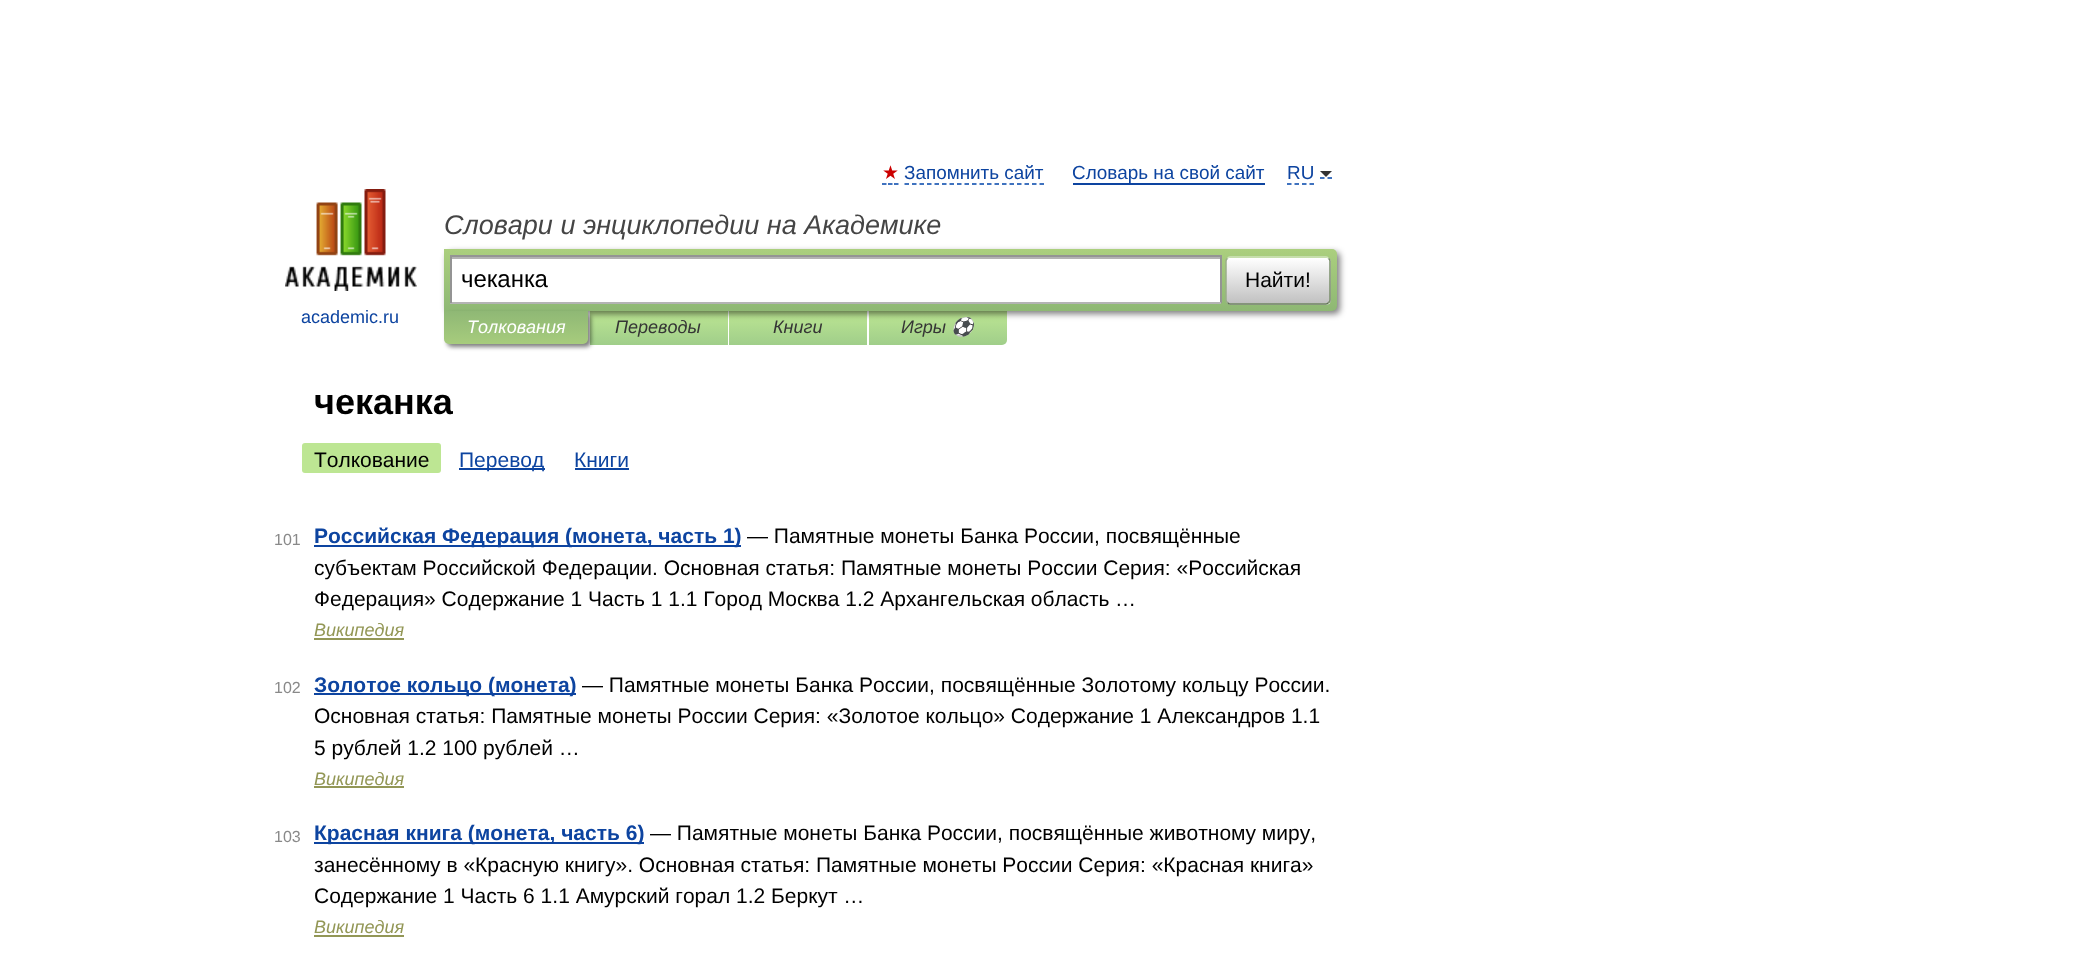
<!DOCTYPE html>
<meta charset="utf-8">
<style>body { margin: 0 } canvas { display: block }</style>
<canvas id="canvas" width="2087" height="970"></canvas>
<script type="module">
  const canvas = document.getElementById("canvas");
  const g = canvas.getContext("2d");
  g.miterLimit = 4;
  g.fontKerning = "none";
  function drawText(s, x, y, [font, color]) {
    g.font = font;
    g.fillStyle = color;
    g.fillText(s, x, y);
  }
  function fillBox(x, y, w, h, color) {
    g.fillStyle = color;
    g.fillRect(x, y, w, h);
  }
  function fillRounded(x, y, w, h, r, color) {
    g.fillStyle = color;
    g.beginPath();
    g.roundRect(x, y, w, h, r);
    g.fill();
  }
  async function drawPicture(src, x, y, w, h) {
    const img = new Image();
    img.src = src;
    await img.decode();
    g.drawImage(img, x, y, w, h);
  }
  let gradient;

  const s1 = ["18.9px DejaVu Sans", "#CC0000"];
  const s2 = ["18.9px Liberation Sans", "#0D44A0"];
  const s3 = ["italic 27px Liberation Sans", "#454545"];
  const s4 = ["24px Liberation Sans", "#000000"];
  const s5 = ["21px Liberation Sans", "#000000"];
  const s6 = ["18px Liberation Sans", "#0D44A0"];
  const s7 = ["italic 18px Liberation Sans", "#FFFFFF"];
  const s8 = ["italic 18px Liberation Sans", "#353535"];
  const s9 = ["italic 18px Noto Color Emoji", "#353535"];
  const s10 = ["bold 36px Liberation Sans", "#000000"];
  const s11 = ["21px Liberation Sans", "#0D44A0"];
  const s12 = ["16px Liberation Sans", "#898989"];
  const s13 = ["bold 21px Liberation Sans", "#0D44A0"];
  const s14 = ["italic 18px Liberation Sans", "#939756"];

  fillBox(0, 0, 2087, 970, "#FFFFFF");
  drawText("★", 882, 179, s1);
  g.beginPath();
  g.moveTo(882, 184);
  g.lineTo(886.5, 184);
  g.moveTo(888, 184);
  g.lineTo(892.5, 184);
  g.moveTo(894, 184);
  g.lineTo(898.5, 184);
  g.strokeStyle = "#0044AA";
  g.lineWidth = 1.5;
  g.stroke();
  drawText("Запомнить сайт", 904, 179, s2);
  g.beginPath();
  g.moveTo(904.5, 184);
  g.lineTo(1044, 184);
  g.setLineDash([4.5, 3]);
  g.stroke();
  drawText("Словарь на свой сайт", 1072, 179, s2);
  fillBox(1073, 183, 192, 2, "#0D44A0");
  g.beginPath();
  g.moveTo(1287, 184);
  g.lineTo(1314, 184);
  g.stroke();
  g.beginPath();
  g.moveTo(1320, 178);
  g.lineTo(1324.5, 178);
  g.moveTo(1327.5, 178);
  g.lineTo(1332, 178);
  g.setLineDash([]);
  g.stroke();
  drawText("RU", 1287, 179, s2);
  g.fillStyle = "#333333";
  g.beginPath();
  g.moveTo(1320, 171);
  g.lineTo(1332, 171);
  g.lineTo(1326, 177);
  g.closePath();
  g.fill();
  drawText("Словари и энциклопедии на Академике", 444, 234, s3);
  gradient = g.createLinearGradient(659, 311, 659, 345);
  gradient.addColorStop(0, "#BDE693");
  gradient.addColorStop(1, "#A0CE8A");
  g.fillStyle = gradient;
  g.fillRect(590, 311, 138, 34);
  gradient = g.createLinearGradient(798, 311, 798, 345);
  gradient.addColorStop(0, "#BDE693");
  gradient.addColorStop(1, "#A0CE8A");
  g.fillStyle = gradient;
  g.fillRect(729, 311, 138, 34);
  gradient = g.createLinearGradient(938, 311, 938, 345);
  gradient.addColorStop(0, "#BDE693");
  gradient.addColorStop(1, "#A0CE8A");
  g.fillStyle = gradient;
  g.beginPath();
  g.roundRect(869, 311, 138, 34, [0, 0, 5, 0]);
  g.fill();
  g.fillStyle = "rgba(0, 0, 0, 0.5)";
  g.filter = "blur(3px)";
  g.beginPath();
  g.roundRect(447, 252, 893, 62, 5);
  g.fill();
  g.filter = "none";
  gradient = g.createLinearGradient(890, 249, 890, 311);
  gradient.addColorStop(0, "#ABCF7E");
  gradient.addColorStop(1, "#8EB874");
  g.fillStyle = gradient;
  g.beginPath();
  g.roundRect(444, 249, 893, 62, [0, 5, 5, 0]);
  g.fill();
  fillBox(452, 259, 768, 43, "#FFFFFF");
  fillBox(452, 257, 768, 2, "#B3B3B3");
  fillBox(450, 255, 771, 2, "#949494");
  fillBox(1220, 255, 2, 48, "#949494");
  fillBox(450, 302, 771, 2, "#B4B4B4");
  fillBox(450, 255, 2, 48, "#949494");
  drawText("чеканка", 461, 287, s4);
  g.save();
  g.beginPath();
  g.roundRect(1226, 257, 105, 48, 5);
  g.clip();
  gradient = g.createLinearGradient(1278, 258, 1278, 303);
  gradient.addColorStop(0, "#FFFFFF");
  gradient.addColorStop(1, "#C1C1C1");
  g.fillStyle = gradient;
  g.fillRect(1226, 258, 105, 45);
  gradient = g.createLinearGradient(1278, 303, 1278, 348);
  gradient.addColorStop(0, "#FFFFFF");
  gradient.addColorStop(1, "#C1C1C1");
  g.fillStyle = gradient;
  g.fillRect(1226, 303, 105, 2);
  g.restore();
  g.beginPath();
  g.moveTo(1227.5, 258.5);
  g.bezierCurveTo(1228, 257.5, 1229, 257, 1230, 257);
  g.lineTo(1326, 257);
  g.bezierCurveTo(1327, 257, 1328, 257.5, 1328.5, 258.5);
  g.strokeStyle = "#D1E4BC";
  g.stroke();
  g.beginPath();
  g.moveTo(1328.5, 258.5);
  g.bezierCurveTo(1329.5, 259, 1330, 260, 1330, 261);
  g.lineTo(1330, 300);
  g.bezierCurveTo(1330, 301, 1329.5, 302, 1328.5, 302.5);
  g.strokeStyle = "#7A8E69";
  g.stroke();
  g.beginPath();
  g.moveTo(1328.5, 302.5);
  g.bezierCurveTo(1328, 303.5, 1327, 304, 1326, 304);
  g.lineTo(1230, 304);
  g.bezierCurveTo(1229, 304, 1228, 303.5, 1227.5, 302.5);
  g.strokeStyle = "#5D7250";
  g.stroke();
  g.beginPath();
  g.moveTo(1227.5, 302.5);
  g.bezierCurveTo(1226.5, 302, 1226, 301, 1226, 300);
  g.lineTo(1226, 261);
  g.bezierCurveTo(1226, 260, 1226.5, 259, 1227.5, 258.5);
  g.strokeStyle = "#9AAE89";
  g.stroke();
  drawText("Найти!", 1245, 287, s5);
  await drawPicture("pic1.png", 285, 189, 132, 102);
  drawText("academic.ru", 301, 323, s6);
  g.fillStyle = "rgba(0, 0, 0, 0.5)";
  g.filter = "blur(2px)";
  g.beginPath();
  g.roundRect(447, 314, 144, 33, 5);
  g.fill();
  g.filter = "none";
  gradient = g.createLinearGradient(516, 311, 516, 344);
  gradient.addColorStop(0, "#8FB875");
  gradient.addColorStop(1, "#A7CC7D");
  g.fillStyle = gradient;
  g.beginPath();
  g.roundRect(444, 311, 144, 33, [0, 0, 5, 5]);
  g.fill();
  drawText("Толкования", 467, 333, s7);
  drawText("Переводы", 615, 333, s8);
  drawText("Книги", 773, 333, s8);
  drawText("Игры", 901, 333, s8);
  drawText("⚽", 951, 333, s9);
  drawText("чеканка", 314, 414, s10);
  fillRounded(302, 443, 139, 30, 3, "#BDE693");
  drawText("Толкование", 314, 467, s5);
  fillBox(459, 468, 86, 2, "#0D44A0");
  drawText("Перевод", 459, 467, s11);
  drawText("Книги", 574, 467, s11);
  fillBox(575, 468, 54, 2, "#0D44A0");
  drawText("101", 274, 545, s12);
  fillBox(314, 545, 427, 2, "#0D44A0");
  drawText("Российская Федерация (монета, часть 1)", 314, 543, s13);
  drawText("— Памятные монеты Банка России, посвящённые", 747, 543, s5);
  drawText("субъектам Российской Федерации. Основная статья: Памятные монеты России Серия: «Российская", 314, 575, s5);
  drawText("Федерация» Содержание 1 Часть 1 1.1 Город Москва 1.2 Архангельская область", 314, 606, s5);
  drawText("…", 1115, 606, s5);
  drawText("Википедия", 314, 636, s14);
  fillBox(314, 638, 90, 2, "#939756");
  drawText("102", 274, 693, s12);
  fillBox(314, 693, 262, 2, "#0D44A0");
  drawText("Золотое кольцо (монета)", 314, 692, s13);
  drawText("— Памятные монеты Банка России, посвящённые Золотому кольцу России.", 582, 692, s5);
  drawText("Основная статья: Памятные монеты России Серия: «Золотое кольцо» Содержание 1 Александров 1.1", 314, 723, s5);
  drawText("5 рублей 1.2 100 рублей …", 314, 755, s5);
  drawText("Википедия", 314, 785, s14);
  fillBox(314, 786, 90, 2, "#939756");
  drawText("103", 274, 842, s12);
  fillBox(314, 842, 330, 2, "#0D44A0");
  drawText("Красная книга (монета, часть 6)", 314, 840, s13);
  drawText("— Памятные монеты Банка России, посвящённые животному миру,", 650, 840, s5);
  drawText("занесённому в «Красную книгу». Основная статья: Памятные монеты России Серия: «Красная книга»", 314, 872, s5);
  drawText("Содержание 1 Часть 6 1.1 Амурский горал 1.2 Беркут …", 314, 903, s5);
  drawText("Википедия", 314, 933, s14);
  fillBox(314, 935, 90, 2, "#939756");
</script>
